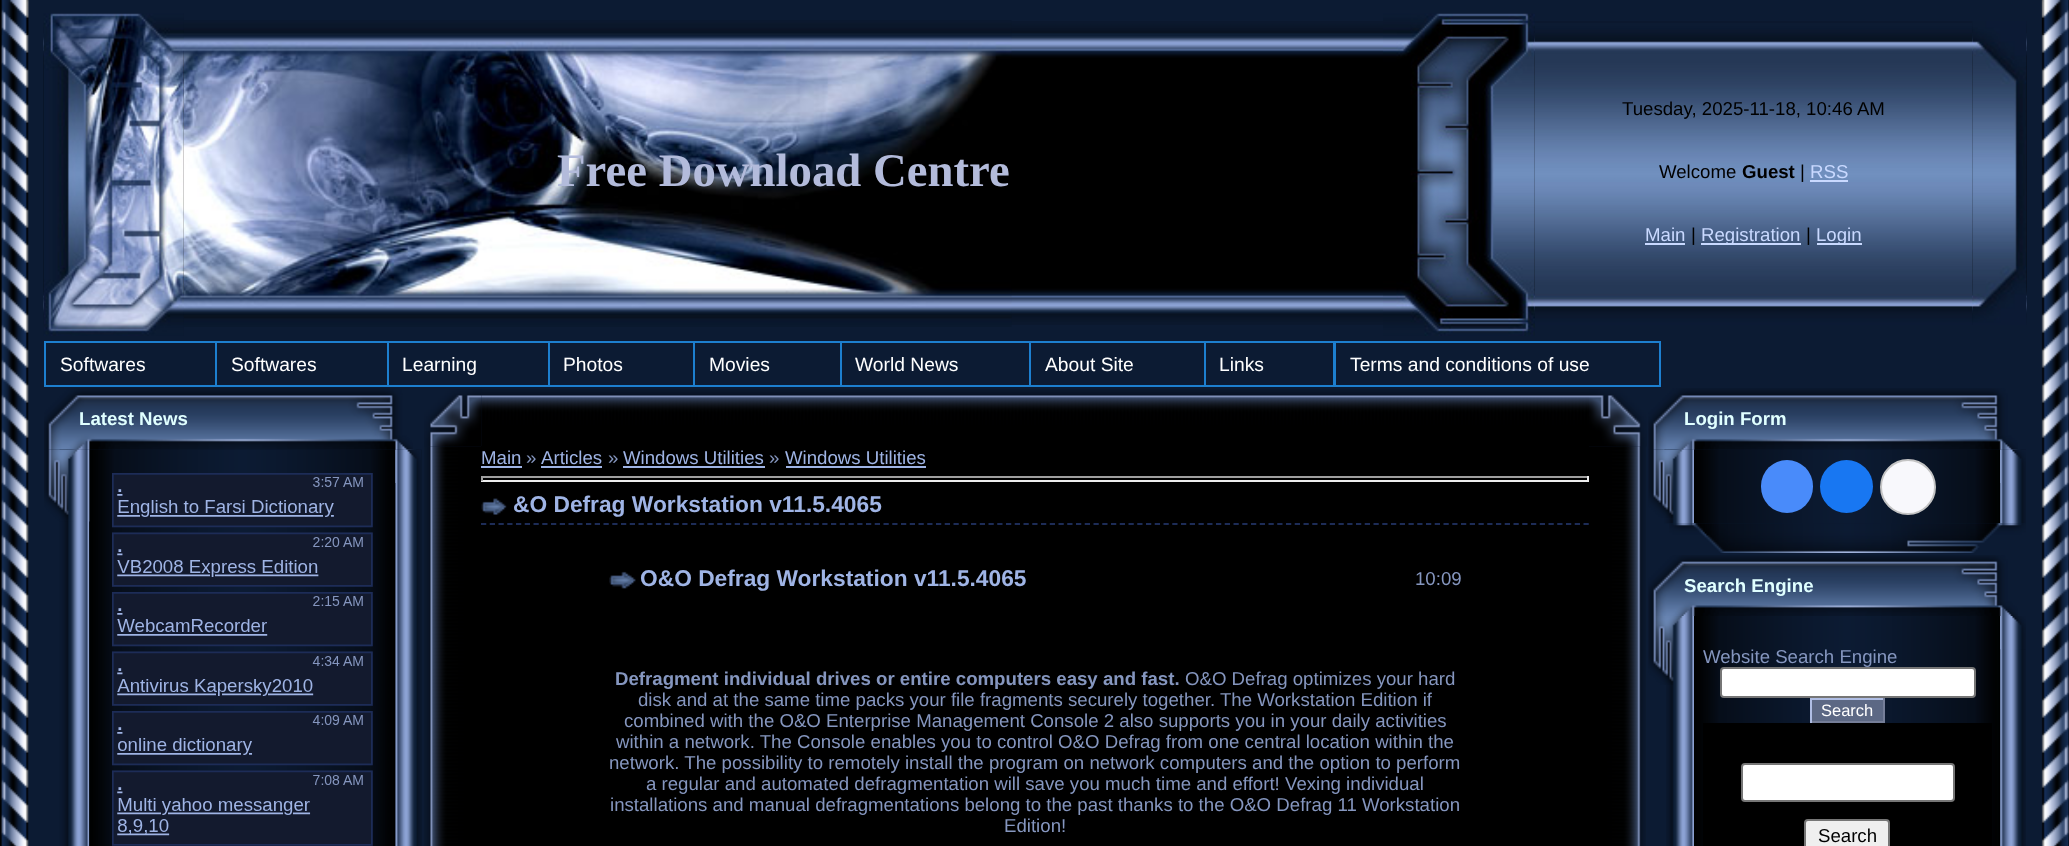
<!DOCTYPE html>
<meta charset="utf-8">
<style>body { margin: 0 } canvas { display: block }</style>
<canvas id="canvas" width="2069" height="846"></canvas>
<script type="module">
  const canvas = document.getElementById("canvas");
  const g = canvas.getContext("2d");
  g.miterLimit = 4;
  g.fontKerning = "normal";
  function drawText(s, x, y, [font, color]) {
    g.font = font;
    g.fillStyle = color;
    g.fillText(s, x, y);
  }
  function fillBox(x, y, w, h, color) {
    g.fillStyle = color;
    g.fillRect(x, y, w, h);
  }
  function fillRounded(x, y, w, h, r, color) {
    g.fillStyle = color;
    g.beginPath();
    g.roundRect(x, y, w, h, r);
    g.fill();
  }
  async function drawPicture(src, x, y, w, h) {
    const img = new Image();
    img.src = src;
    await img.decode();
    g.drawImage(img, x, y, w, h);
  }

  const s1 = ["bold 46.75px Liberation Serif", "#B3BBDB"];
  const s2 = ["18.65px Liberation Sans", "#000000"];
  const s3 = ["bold 18.65px Liberation Sans", "#000000"];
  const s4 = ["18.65px Liberation Sans", "#C9D9FF"];
  const s5 = ["19.25px Liberation Sans", "#FFFFFF"];
  const s6 = ["bold 18.65px Liberation Sans", "#E0FFFF"];
  const s7 = ["18.65px Liberation Sans", "#8596BF"];
  const s8 = ["16.5px Liberation Sans", "#FFFFFF"];
  const s9 = ["18.65px Liberation Sans", "#9FB4E5"];
  const s10 = ["bold 22.75px Liberation Sans", "#9FB4E5"];
  const s11 = ["bold 18.65px Liberation Sans", "#8596BF"];

  fillBox(0, 0, 2069, 846, "#0C1B33");
  await drawPicture("pic1.png", 0, 0, 29, 846);
  await drawPicture("pic2.png", 1, 0, 28, 35);
  await drawPicture("pic3.png", 43, 21, 1984, 304);
  await drawPicture("pic5.png", 183, 20, 829, 307);
  await drawPicture("pic4.png", 43, 13, 141, 323);
  drawText("Free Download Centre", 557, 186, s1);
  await drawPicture("pic7.png", 1534, 23, 439, 302);
  await drawPicture("pic6.png", 1383, 13, 152, 323);
  drawText("Tuesday, 2025-11-18, 10:46 AM", 1622, 115, s2);
  drawText("Welcome", 1659, 178, s2);
  drawText("Guest", 1742, 178, s3);
  drawText("|", 1800, 178, s2);
  drawText("RSS", 1810, 178, s4);
  fillBox(1810, 180, 38, 2, "#C9D9FF");
  drawText("Main", 1645, 241, s4);
  fillBox(1645, 243, 40, 2, "#C9D9FF");
  drawText("|", 1691, 241, s2);
  fillBox(1701, 243, 100, 2, "#C9D9FF");
  drawText("Registration", 1701, 241, s4);
  drawText("|", 1806, 241, s2);
  fillBox(1817, 243, 45, 2, "#C9D9FF");
  drawText("Login", 1816, 241, s4);
  await drawPicture("pic8.png", 1972, 21, 55, 304);
  g.strokeStyle = "#1D7FCF";
  g.lineWidth = 2;
  g.strokeRect(45, 342, 171, 44);
  drawText("Softwares", 60, 371, s5);
  g.strokeRect(216, 342, 172, 44);
  drawText("Softwares", 231, 371, s5);
  g.strokeRect(388, 342, 161, 44);
  drawText("Learning", 402, 371, s5);
  g.strokeRect(549, 342, 145, 44);
  drawText("Photos", 563, 371, s5);
  g.strokeRect(694, 342, 147, 44);
  drawText("Movies", 709, 371, s5);
  g.strokeRect(841, 342, 189, 44);
  drawText("World News", 855, 371, s5);
  g.strokeRect(1030, 342, 175, 44);
  drawText("About Site", 1045, 371, s5);
  g.strokeRect(1205, 342, 129, 44);
  drawText("Links", 1219, 371, s5);
  g.strokeRect(1335, 342, 325, 44);
  drawText("Terms and conditions of use", 1350, 371, s5);
  await drawPicture("pic9.png", 44, 388, 369, 62);
  drawText("Latest News", 79, 425, s6);
  await drawPicture("pic10.png", 59, 449, 31, 397);
  await drawPicture("pic12.png", 89, 449, 307, 397);
  await drawPicture("pic11.png", 44, 449, 46, 73);
  await drawPicture("pic13.png", 112, 473, 261, 373);
  await drawPicture("pic14.png", 395, 449, 27, 397);
  await drawPicture("pic15.png", 395, 449, 26, 34);
  await drawPicture("pic16.png", 1648, 388, 370, 62);
  drawText("Login Form", 1684, 425, s6);
  await drawPicture("pic17.png", 1664, 449, 30, 75);
  await drawPicture("pic18.png", 1648, 449, 46, 69);
  await drawPicture("pic19.png", 1694, 449, 307, 75);
  fillRounded(1761, 460, 52, 53, 26, "#498BFA");
  g.fillStyle = "#1877F2";
  g.beginPath();
  g.arc(1846.5, 486.5, 26.5, 0, Math.PI * 2);
  g.fill();
  g.fillStyle = "#F8F8FC";
  g.beginPath();
  g.arc(1908, 487, 27, 0, Math.PI * 2);
  g.fill();
  g.strokeStyle = "#C4C4C4";
  g.stroke();
  await drawPicture("pic20.png", 2000, 449, 26, 75);
  await drawPicture("pic21.png", 2000, 449, 26, 34);
  await drawPicture("pic22.png", 1669, 523, 357, 30);
  await drawPicture("pic23.png", 1648, 555, 370, 61);
  drawText("Search Engine", 1684, 592, s6);
  await drawPicture("pic24.png", 1666, 616, 28, 230);
  await drawPicture("pic25.png", 1648, 616, 35, 69);
  await drawPicture("pic26.png", 1694, 616, 307, 230);
  drawText("Website Search Engine", 1703, 663, s7);
  g.fillStyle = "#FFFFFF";
  g.beginPath();
  g.roundRect(1721, 668, 254, 29, 3);
  g.fill();
  g.strokeStyle = "#767676";
  g.stroke();
  fillBox(1812, 700, 71, 21, "#5C6884");
  fillBox(1810, 698, 75, 2, "#AFBDE4");
  fillBox(1883, 698, 2, 25, "#757E98");
  fillBox(1810, 721, 75, 2, "#757E98");
  fillBox(1810, 698, 2, 25, "#AFBDE4");
  drawText("Search", 1821, 716, s8);
  fillBox(1703, 723, 289, 123, "#000000");
  g.fillStyle = "#FFFFFF";
  g.beginPath();
  g.roundRect(1742, 764, 212, 37, 3);
  g.fill();
  g.stroke();
  g.fillStyle = "#EFEFEF";
  g.beginPath();
  g.roundRect(1805, 820, 84, 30, 3);
  g.fill();
  g.stroke();
  drawText("Search", 1818, 842, s2);
  await drawPicture("pic27.png", 2000, 616, 26, 230);
  await drawPicture("pic28.png", 2000, 616, 26, 34);
  await drawPicture("pic30.png", 481, 389, 1108, 57);
  await drawPicture("pic32.png", 424, 446, 57, 400);
  fillBox(481, 446, 1108, 400, "#000000");
  await drawPicture("pic29.png", 424, 389, 58, 58);
  await drawPicture("pic35.png", 1589, 446, 57, 400);
  await drawPicture("pic31.png", 1589, 389, 58, 58);
  drawText("Main", 481, 464, s9);
  fillBox(481, 466, 41, 2, "#9FB4E5");
  drawText("»", 526, 464, s7);
  drawText("Articles", 541, 464, s9);
  fillBox(541, 466, 61, 2, "#9FB4E5");
  drawText("»", 608, 464, s7);
  drawText("Windows Utilities", 623, 464, s9);
  fillBox(623, 466, 142, 2, "#9FB4E5");
  drawText("»", 769, 464, s7);
  drawText("Windows Utilities", 785, 464, s9);
  fillBox(786, 466, 140, 2, "#9FB4E5");
  fillBox(481, 476, 1108, 2, "#9F9F9F");
  fillBox(1587, 476, 2, 5, "#EEEEEE");
  fillBox(481, 480, 1108, 2, "#EEEEEE");
  fillBox(481, 476, 2, 5, "#9F9F9F");
  await drawPicture("pic33.png", 481, 498, 26, 17);
  drawText("&O Defrag Workstation v11.5.4065", 513, 512, s10);
  g.beginPath();
  g.moveTo(481, 524);
  g.lineTo(1589, 524);
  g.strokeStyle = "#1D2C57";
  g.lineWidth = 1.8;
  g.setLineDash([5.25, 3.5]);
  g.stroke();
  await drawPicture("pic34.png", 609, 571, 27, 18);
  drawText("O&O Defrag Workstation v11.5.4065", 640, 586, s10);
  drawText("10:09", 1415, 585, s7);
  drawText("Defragment individual drives or entire computers easy and fast.", 615, 685, s11);
  drawText("O&O Defrag optimizes your hard", 1185, 685, s7);
  drawText("disk and at the same time packs your file fragments securely together. The Workstation Edition if", 638, 706, s7);
  drawText("combined with the O&O Enterprise Management Console 2 also supports you in your daily activities", 624, 727, s7);
  drawText("within a network. The Console enables you to control O&O Defrag from one central location within the", 616, 748, s7);
  drawText("network. The possibility to remotely install the program on network computers and the option to perform", 609, 769, s7);
  drawText("a regular and automated defragmentation will save you much time and effort! Vexing individual", 646, 790, s7);
  drawText("installations and manual defragmentations belong to the past thanks to the O&O Defrag 11 Workstation", 610, 811, s7);
  drawText("Edition!", 1004, 832, s7);
  await drawPicture("pic36.png", 2041, 0, 28, 846);
  await drawPicture("pic37.png", 2041, 0, 27, 35);
</script>
